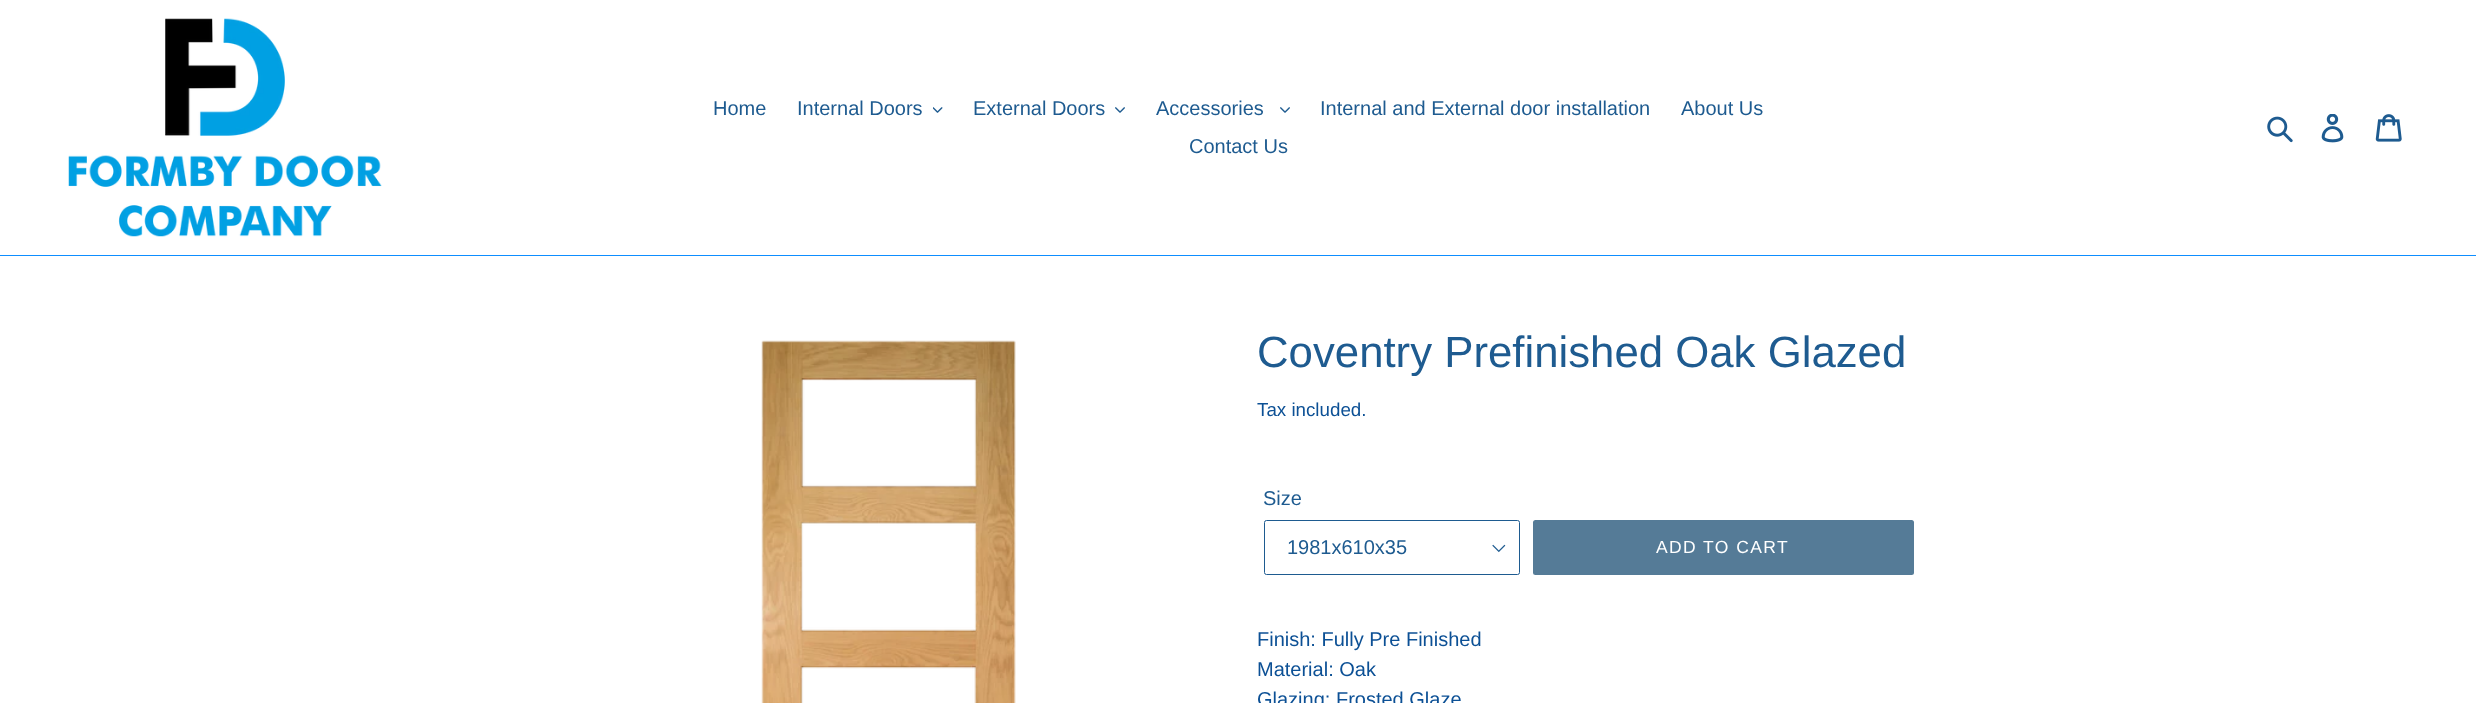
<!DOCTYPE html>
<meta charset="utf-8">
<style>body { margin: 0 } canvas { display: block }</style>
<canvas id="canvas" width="2476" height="703"></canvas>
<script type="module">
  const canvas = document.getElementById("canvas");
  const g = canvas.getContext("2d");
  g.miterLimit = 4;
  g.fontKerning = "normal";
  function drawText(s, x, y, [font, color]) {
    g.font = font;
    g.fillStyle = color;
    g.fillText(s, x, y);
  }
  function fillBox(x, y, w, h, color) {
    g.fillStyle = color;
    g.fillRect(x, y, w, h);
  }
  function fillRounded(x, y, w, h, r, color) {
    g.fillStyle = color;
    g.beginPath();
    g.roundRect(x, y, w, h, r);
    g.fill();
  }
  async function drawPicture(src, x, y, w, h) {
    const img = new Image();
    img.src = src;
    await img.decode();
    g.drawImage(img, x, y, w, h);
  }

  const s1 = ["20px Liberation Sans", "#1E5B90"];
  const s2 = ["43.75px Liberation Sans", "#1E5B90"];
  const s3 = ["18.75px Liberation Sans", "#0C5095"];
  const s4 = ["17.5px Liberation Sans", "#FFFFFF"];
  const s5 = ["20px Liberation Sans", "#0C5095"];

  fillBox(0, 0, 2476, 703, "#FFFFFF");
  fillBox(0, 255, 2476, 1, "#0E8EFF");
  await drawPicture("pic1.png", 68, 18, 314, 219);
  drawText("Home", 713, 115, s1);
  drawText("Internal Doors", 797, 115, s1);
  await drawPicture("pic2.png", 933, 107, 10, 6);
  drawText("External Doors", 973, 115, s1);
  await drawPicture("pic3.png", 1115, 107, 10, 6);
  drawText("Accessories", 1156, 115, s1);
  await drawPicture("pic3.png", 1280, 107, 10, 6);
  drawText("Internal and External door installation", 1320, 115, s1);
  drawText("About Us", 1681, 115, s1);
  drawText("Contact Us", 1189, 153, s1);
  await drawPicture("pic4.png", 2267, 116, 26, 27);
  await drawPicture("pic5.png", 2321, 114, 23, 29);
  await drawPicture("pic6.png", 2375, 114, 27, 28);
  await drawPicture("pic7.png", 761, 340, 255, 363);
  drawText("Coventry Prefinished Oak Glazed", 1257, 367, s2);
  drawText("Tax included.", 1257, 416, s3);
  drawText("Size", 1263, 505, s1);
  await drawPicture("pic8.png", 1492, 544, 14, 9);
  g.beginPath();
  g.roundRect(1264.5, 520.5, 255, 54, 2);
  g.strokeStyle = "#1E5B90";
  g.stroke();
  drawText("1981x610x35", 1287, 554, s1);
  fillRounded(1533, 520, 381, 55, 2.5, "#557B97");
  g.letterSpacing = "1.4px";
  drawText("ADD TO CART", 1656, 553, s4);
  g.letterSpacing = "0px";
  drawText("Finish: Fully Pre Finished", 1257, 646, s5);
  drawText("Material: Oak", 1257, 676, s5);
  drawText("Glazing: Frosted Glaze", 1257, 706, s5);
</script>
